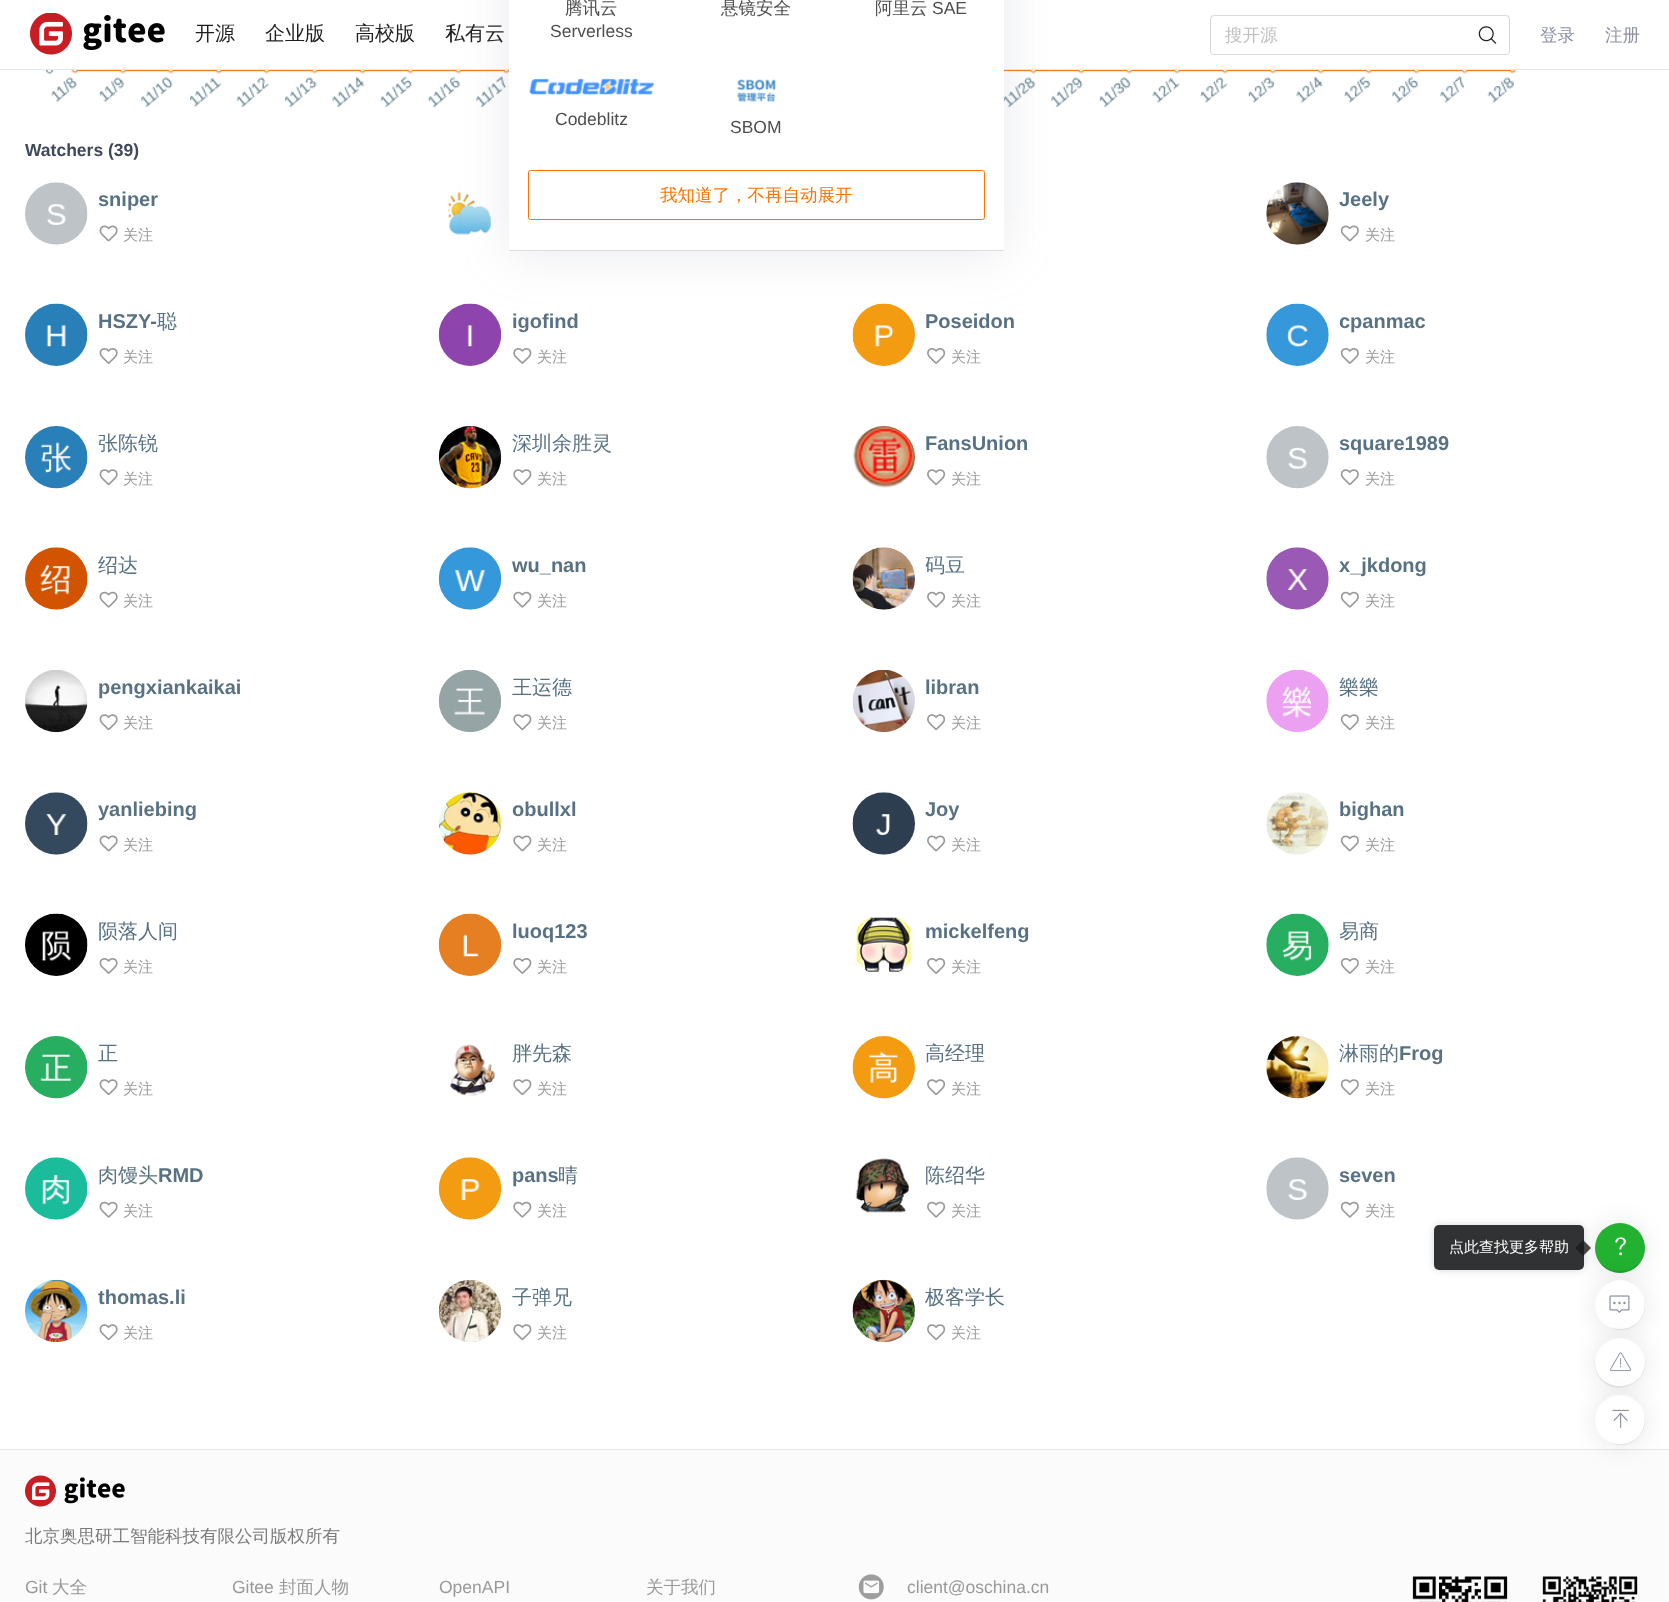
<!DOCTYPE html>
<meta charset="utf-8">
<style>body { margin: 0 } canvas { display: block }</style>
<canvas id="canvas" width="1669" height="1602"></canvas>
<script type="module">
  const canvas = document.getElementById("canvas");
  const g = canvas.getContext("2d");
  g.miterLimit = 4;
  g.fontKerning = "normal";
  function drawText(s, x, y, [font, color]) {
    g.font = font;
    g.fillStyle = color;
    g.fillText(s, x, y);
  }
  function fillBox(x, y, w, h, color) {
    g.fillStyle = color;
    g.fillRect(x, y, w, h);
  }
  function fillRounded(x, y, w, h, r, color) {
    g.fillStyle = color;
    g.beginPath();
    g.roundRect(x, y, w, h, r);
    g.fill();
  }
  async function drawPicture(src, x, y, w, h) {
    const img = new Image();
    img.src = src;
    await img.decode();
    g.drawImage(img, x, y, w, h);
  }

  const s1 = ["500 17.5px WenQuanYi Zen Hei", "#4E4E4E"];
  const s2 = ["17.5px Liberation Sans", "#4E4E4E"];
  const s3 = ["500 17.5px WenQuanYi Zen Hei", "#FE7300"];
  const s4 = ["bold 17.5px Liberation Sans", "#40485B"];
  const s5 = ["bold 20px Liberation Sans", "#587284"];
  const s6 = ["500 15px WenQuanYi Zen Hei", "#999999"];
  const s7 = ["500 20px WenQuanYi Zen Hei", "#587284"];
  const s8 = ["500 20px WenQuanYi Zen Hei", "#1F1F1F"];
  const s9 = ["500 17.5px WenQuanYi Zen Hei", "#BFBFBF"];
  const s10 = ["500 17.5px WenQuanYi Zen Hei", "#8C92A4"];
  const s11 = ["500 15px WenQuanYi Zen Hei", "#FFFFFF"];
  const s12 = ["500 17.5px WenQuanYi Zen Hei", "#7A7A7A"];
  const s13 = ["17.5px Liberation Sans", "#999999"];
  const s14 = ["500 17.5px WenQuanYi Zen Hei", "#999999"];

  fillBox(0, 0, 1669, 1602, "#FFFFFF");
  await drawPicture("pic3.png", 45, 70, 1472, 38);
  await drawPicture("pic6.png", 448, 191, 43, 44);
  await drawPicture("pic11.png", 438, 303, 64, 63);
  await drawPicture("pic13.png", 852, 303, 63, 63);
  fillBox(0, 69, 1669, 1, "#E3E9ED");
  g.fillStyle = "rgba(140, 146, 163, 0.2)";
  g.filter = "blur(25px)";
  g.beginPath();
  g.rect(509, -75, 495, 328);
  g.fill();
  g.filter = "none";
  fillBox(509, 0, 495, 250, "#FFFFFF");
  fillBox(509, 250, 495, 1, "#DEDEDF");
  drawText("腾讯云", 565, 14, s1);
  drawText("Serverless", 550, 37, s2);
  drawText("悬镜安全", 721, 14, s1);
  drawText("阿里云", 875, 14, s1);
  drawText("SAE", 932, 14, s2);
  await drawPicture("pic1.png", 529, 78, 125, 17);
  drawText("Codeblitz", 555, 125, s2);
  await drawPicture("pic2.png", 736, 79, 40, 24);
  drawText("SBOM", 730, 133, s2);
  g.beginPath();
  g.roundRect(528.5, 170.5, 456, 49, 2);
  g.strokeStyle = "#FE7300";
  g.stroke();
  drawText("我知道了，不再自动展开", 660, 201, s3);
  drawText("Watchers (39)", 25, 156, s4);
  await drawPicture("pic4.png", 25, 182, 63, 63);
  drawText("sniper", 98, 206, s5);
  await drawPicture("pic5.png", 99, 225, 19, 17);
  drawText("关注", 123, 240, s6);
  await drawPicture("pic7.png", 1266, 182, 63, 63);
  drawText("Jeely", 1339, 206, s5);
  await drawPicture("pic8.png", 1340, 225, 19, 17);
  drawText("关注", 1365, 240, s6);
  await drawPicture("pic9.png", 25, 303, 63, 63);
  drawText("HSZY-", 98, 328, s5);
  drawText("聪", 157, 328, s7);
  await drawPicture("pic10.png", 99, 348, 19, 16);
  drawText("关注", 123, 362, s6);
  drawText("igofind", 512, 328, s5);
  await drawPicture("pic12.png", 513, 348, 19, 16);
  drawText("关注", 537, 362, s6);
  drawText("Poseidon", 925, 328, s5);
  await drawPicture("pic14.png", 927, 348, 19, 16);
  drawText("关注", 951, 362, s6);
  await drawPicture("pic15.png", 1266, 303, 63, 63);
  drawText("cpanmac", 1339, 328, s5);
  await drawPicture("pic16.png", 1340, 348, 19, 16);
  drawText("关注", 1365, 362, s6);
  await drawPicture("pic17.png", 25, 426, 63, 63);
  drawText("张陈锐", 98, 450, s7);
  await drawPicture("pic18.png", 99, 469, 19, 17);
  drawText("关注", 123, 484, s6);
  await drawPicture("pic19.png", 438, 426, 64, 63);
  drawText("深圳余胜灵", 512, 450, s7);
  await drawPicture("pic20.png", 513, 469, 19, 17);
  drawText("关注", 537, 484, s6);
  await drawPicture("pic21.png", 853, 426, 62, 62);
  drawText("FansUnion", 925, 450, s5);
  await drawPicture("pic22.png", 927, 469, 19, 17);
  drawText("关注", 951, 484, s6);
  await drawPicture("pic23.png", 1266, 426, 63, 63);
  drawText("square1989", 1339, 450, s5);
  await drawPicture("pic24.png", 1340, 469, 19, 17);
  drawText("关注", 1365, 484, s6);
  await drawPicture("pic25.png", 25, 547, 63, 63);
  drawText("绍达", 98, 572, s7);
  await drawPicture("pic26.png", 99, 591, 19, 17);
  drawText("关注", 123, 606, s6);
  await drawPicture("pic27.png", 438, 547, 64, 63);
  drawText("wu_nan", 512, 572, s5);
  await drawPicture("pic28.png", 513, 591, 19, 17);
  drawText("关注", 537, 606, s6);
  await drawPicture("pic29.png", 852, 547, 63, 63);
  drawText("码豆", 925, 572, s7);
  await drawPicture("pic30.png", 927, 591, 19, 17);
  drawText("关注", 951, 606, s6);
  await drawPicture("pic31.png", 1266, 547, 63, 63);
  drawText("x_jkdong", 1339, 572, s5);
  await drawPicture("pic32.png", 1340, 591, 19, 17);
  drawText("关注", 1365, 606, s6);
  await drawPicture("pic33.png", 25, 670, 63, 63);
  drawText("pengxiankaikai", 98, 694, s5);
  await drawPicture("pic18.png", 99, 714, 19, 17);
  drawText("关注", 123, 728, s6);
  await drawPicture("pic34.png", 438, 669, 64, 64);
  drawText("王运德", 512, 694, s7);
  await drawPicture("pic20.png", 513, 714, 19, 17);
  drawText("关注", 537, 728, s6);
  await drawPicture("pic35.png", 852, 669, 63, 64);
  drawText("libran", 925, 694, s5);
  await drawPicture("pic22.png", 927, 714, 19, 17);
  drawText("关注", 951, 728, s6);
  await drawPicture("pic36.png", 1266, 669, 63, 64);
  drawText("樂樂", 1339, 694, s7);
  await drawPicture("pic24.png", 1340, 714, 19, 17);
  drawText("关注", 1365, 728, s6);
  await drawPicture("pic37.png", 25, 792, 63, 63);
  drawText("yanliebing", 98, 816, s5);
  await drawPicture("pic5.png", 99, 835, 19, 17);
  drawText("关注", 123, 850, s6);
  await drawPicture("pic38.png", 439, 792, 63, 63);
  drawText("obullxl", 512, 816, s5);
  await drawPicture("pic39.png", 513, 835, 19, 17);
  drawText("关注", 537, 850, s6);
  await drawPicture("pic40.png", 852, 792, 63, 63);
  drawText("Joy", 925, 816, s5);
  await drawPicture("pic41.png", 927, 835, 19, 17);
  drawText("关注", 951, 850, s6);
  await drawPicture("pic42.png", 1266, 792, 63, 63);
  drawText("bighan", 1339, 816, s5);
  await drawPicture("pic8.png", 1340, 835, 19, 17);
  drawText("关注", 1365, 850, s6);
  await drawPicture("pic43.png", 25, 913, 63, 63);
  drawText("陨落人间", 98, 938, s7);
  await drawPicture("pic10.png", 99, 958, 19, 16);
  drawText("关注", 123, 972, s6);
  await drawPicture("pic44.png", 438, 913, 64, 63);
  drawText("luoq123", 512, 938, s5);
  await drawPicture("pic12.png", 513, 958, 19, 16);
  drawText("关注", 537, 972, s6);
  await drawPicture("pic45.png", 856, 917, 55, 55);
  drawText("mickelfeng", 925, 938, s5);
  await drawPicture("pic14.png", 927, 958, 19, 16);
  drawText("关注", 951, 972, s6);
  await drawPicture("pic46.png", 1266, 913, 63, 63);
  drawText("易商", 1339, 938, s7);
  await drawPicture("pic16.png", 1340, 958, 19, 16);
  drawText("关注", 1365, 972, s6);
  await drawPicture("pic47.png", 25, 1036, 63, 63);
  drawText("正", 98, 1060, s7);
  await drawPicture("pic18.png", 99, 1079, 19, 17);
  drawText("关注", 123, 1094, s6);
  await drawPicture("pic48.png", 450, 1044, 46, 52);
  drawText("胖先森", 512, 1060, s7);
  await drawPicture("pic20.png", 513, 1079, 19, 17);
  drawText("关注", 537, 1094, s6);
  await drawPicture("pic49.png", 852, 1036, 63, 63);
  drawText("高经理", 925, 1060, s7);
  await drawPicture("pic22.png", 927, 1079, 19, 17);
  drawText("关注", 951, 1094, s6);
  await drawPicture("pic50.png", 1266, 1036, 63, 63);
  drawText("淋雨的", 1339, 1060, s7);
  drawText("Frog", 1399, 1060, s5);
  await drawPicture("pic24.png", 1340, 1079, 19, 17);
  drawText("关注", 1365, 1094, s6);
  await drawPicture("pic51.png", 25, 1157, 63, 63);
  drawText("肉馒头", 98, 1182, s7);
  drawText("RMD", 158, 1182, s5);
  await drawPicture("pic26.png", 99, 1201, 19, 17);
  drawText("关注", 123, 1216, s6);
  await drawPicture("pic52.png", 438, 1157, 64, 63);
  drawText("pans", 512, 1182, s5);
  drawText("晴", 558, 1182, s7);
  await drawPicture("pic28.png", 513, 1201, 19, 17);
  drawText("关注", 537, 1216, s6);
  await drawPicture("pic53.png", 855, 1158, 55, 55);
  drawText("陈绍华", 925, 1182, s7);
  await drawPicture("pic30.png", 927, 1201, 19, 17);
  drawText("关注", 951, 1216, s6);
  await drawPicture("pic54.png", 1266, 1157, 63, 63);
  drawText("seven", 1339, 1182, s5);
  await drawPicture("pic32.png", 1340, 1201, 19, 17);
  drawText("关注", 1365, 1216, s6);
  await drawPicture("pic55.png", 25, 1279, 63, 64);
  drawText("thomas.li", 98, 1304, s5);
  await drawPicture("pic18.png", 99, 1324, 19, 17);
  drawText("关注", 123, 1338, s6);
  await drawPicture("pic56.png", 438, 1279, 64, 63);
  drawText("子弹兄", 512, 1304, s7);
  await drawPicture("pic20.png", 513, 1324, 19, 17);
  drawText("关注", 537, 1338, s6);
  await drawPicture("pic57.png", 852, 1279, 63, 64);
  drawText("极客学长", 925, 1304, s7);
  await drawPicture("pic22.png", 927, 1324, 19, 17);
  drawText("关注", 951, 1338, s6);
  await drawPicture("pic58.png", 30, 13, 135, 42);
  drawText("开源", 195, 40, s8);
  drawText("企业版", 265, 40, s8);
  drawText("高校版", 355, 40, s8);
  drawText("私有云", 445, 40, s8);
  g.beginPath();
  g.roundRect(1210.5, 15.5, 299, 39, 3.5);
  g.strokeStyle = "#D9D9D9";
  g.stroke();
  drawText("搜开源", 1225, 41, s9);
  await drawPicture("pic59.png", 1478, 26, 19, 18);
  drawText("登录", 1540, 41, s10);
  drawText("注册", 1605, 41, s10);
  g.fillStyle = "rgba(0, 0, 0, 0.1)";
  g.filter = "blur(12.5px)";
  g.beginPath();
  g.roundRect(1595, 1224, 50, 50, 25);
  g.fill();
  g.filter = "none";
  g.fillStyle = "#22B130";
  g.beginPath();
  g.arc(1620, 1248, 25, 0, Math.PI * 2);
  g.fill();
  g.fillStyle = "rgba(0, 0, 0, 0.1)";
  g.beginPath();
  g.moveTo(1645, 1244);
  g.bezierCurveTo(1647, 1280, 1593, 1280, 1595, 1244);
  g.bezierCurveTo(1594, 1250, 1596, 1257, 1599, 1262);
  g.bezierCurveTo(1614, 1284, 1649, 1270, 1645, 1244);
  g.closePath();
  g.fill();
  g.save();
  g.beginPath();
  g.moveTo(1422, 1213);
  g.lineTo(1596, 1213);
  g.lineTo(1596, 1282);
  g.lineTo(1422, 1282);
  g.closePath();
  g.moveTo(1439, 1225);
  g.lineTo(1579, 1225);
  g.bezierCurveTo(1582, 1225, 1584, 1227, 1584, 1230);
  g.lineTo(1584, 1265);
  g.bezierCurveTo(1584, 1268, 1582, 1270, 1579, 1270);
  g.lineTo(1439, 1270);
  g.bezierCurveTo(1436, 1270, 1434, 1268, 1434, 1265);
  g.lineTo(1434, 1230);
  g.bezierCurveTo(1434, 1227, 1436, 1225, 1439, 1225);
  g.closePath();
  g.clip("evenodd");
  g.fillStyle = "rgba(140, 146, 163, 0.45)";
  g.filter = "blur(4px)";
  g.beginPath();
  g.roundRect(1435, 1226, 148, 43, 4);
  g.fill();
  g.filter = "none";
  g.restore();
  fillRounded(1434, 1225, 150, 45, 5, "rgba(27, 28, 29, 0.9)");
  drawText("点此查找更多帮助", 1449, 1252, s11);
  g.fillStyle = "rgba(179, 179, 179, 0.16)";
  g.beginPath();
  g.moveTo(1585, 1240);
  g.lineTo(1584, 1241);
  g.lineTo(1591, 1248);
  g.lineTo(1584, 1255);
  g.lineTo(1585, 1256);
  g.lineTo(1592.5, 1248);
  g.closePath();
  g.fill();
  g.fillStyle = "rgba(27, 28, 29, 0.81)";
  g.beginPath();
  g.moveTo(1583, 1240);
  g.lineTo(1591, 1248);
  g.lineTo(1583, 1256);
  g.lineTo(1575, 1248);
  g.closePath();
  g.fill();
  await drawPicture("pic60.png", 1615, 1237, 11, 19);
  g.fillStyle = "rgba(0, 0, 0, 0.1)";
  g.filter = "blur(12.5px)";
  g.beginPath();
  g.roundRect(1595, 1281, 50, 50, 25);
  g.fill();
  g.filter = "none";
  g.fillStyle = "#FFFFFF";
  g.beginPath();
  g.arc(1620, 1305, 25, 0, Math.PI * 2);
  g.fill();
  g.fillStyle = "rgba(0, 0, 0, 0.1)";
  g.beginPath();
  g.moveTo(1596, 1299);
  g.bezierCurveTo(1590, 1326, 1625, 1342, 1641, 1319);
  g.bezierCurveTo(1645, 1313, 1646, 1306, 1644, 1299);
  g.bezierCurveTo(1647, 1313, 1639, 1329, 1620, 1329);
  g.bezierCurveTo(1601, 1329, 1593, 1313, 1596, 1299);
  g.closePath();
  g.fill();
  await drawPicture("pic61.png", 1609, 1295, 21, 18);
  g.filter = "blur(12.5px)";
  g.beginPath();
  g.roundRect(1595, 1339, 50, 50, 25);
  g.fill();
  g.filter = "none";
  g.fillStyle = "#FFFFFF";
  g.beginPath();
  g.arc(1620, 1363, 25, 0, Math.PI * 2);
  g.fill();
  g.fillStyle = "rgba(0, 0, 0, 0.1)";
  g.beginPath();
  g.moveTo(1645, 1359);
  g.bezierCurveTo(1647, 1395, 1593, 1395, 1595, 1359);
  g.bezierCurveTo(1594, 1365, 1596, 1372, 1599, 1377);
  g.bezierCurveTo(1614, 1399, 1649, 1385, 1645, 1359);
  g.closePath();
  g.fill();
  await drawPicture("pic62.png", 1610, 1352, 22, 20);
  fillBox(0, 1450, 1669, 152, "#FBFBFB");
  fillBox(0, 1449, 1669, 1, "#E3E9ED");
  g.fillStyle = "rgba(0, 0, 0, 0.1)";
  g.filter = "blur(12.5px)";
  g.beginPath();
  g.roundRect(1595, 1396, 50, 50, 25);
  g.fill();
  g.filter = "none";
  g.fillStyle = "#FFFFFF";
  g.beginPath();
  g.arc(1620, 1420, 25, 0, Math.PI * 2);
  g.fill();
  g.fillStyle = "rgba(0, 0, 0, 0.1)";
  g.beginPath();
  g.moveTo(1596, 1414);
  g.bezierCurveTo(1590, 1441, 1625, 1457, 1641, 1434);
  g.bezierCurveTo(1645, 1428, 1646, 1421, 1644, 1414);
  g.bezierCurveTo(1647, 1428, 1639, 1444, 1620, 1444);
  g.bezierCurveTo(1601, 1444, 1593, 1428, 1596, 1414);
  g.closePath();
  g.fill();
  await drawPicture("pic63.png", 1612, 1409, 17, 19);
  await drawPicture("pic64.png", 25, 1475, 100, 32);
  drawText("北京奥思研工智能科技有限公司版权所有", 25, 1542, s12);
  drawText("Git", 25, 1593, s13);
  drawText("大全", 52, 1593, s14);
  drawText("Gitee", 232, 1593, s13);
  drawText("封面人物", 279, 1593, s14);
  drawText("OpenAPI", 439, 1593, s13);
  drawText("关于我们", 646, 1593, s14);
  await drawPicture("pic65.png", 858, 1574, 26, 26);
  drawText("client@oschina.cn", 907, 1593, s13);
  await drawPicture("pic66.png", 1412, 1576, 96, 26);
  await drawPicture("pic67.png", 1542, 1576, 96, 26);
</script>
